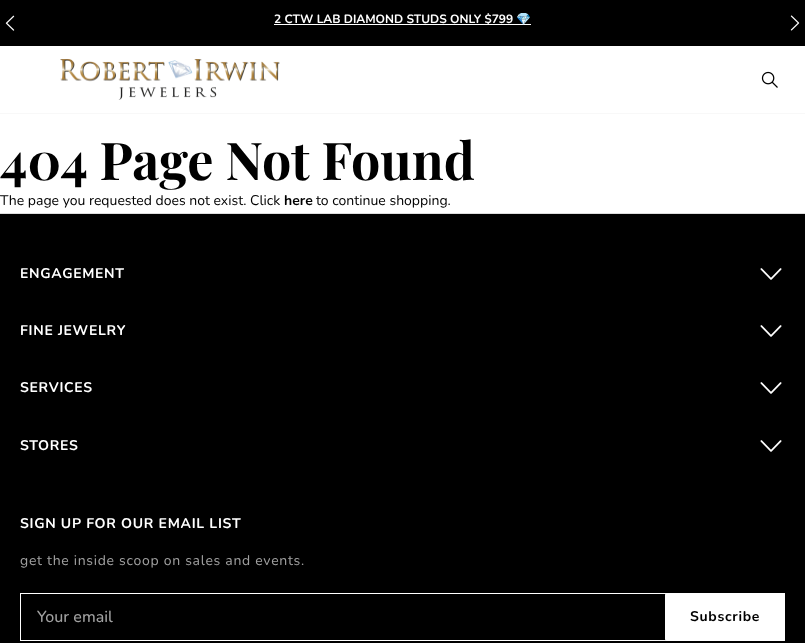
<!DOCTYPE html>
<meta charset="utf-8">
<style>body { margin: 0 } canvas { display: block }</style>
<canvas id="canvas" width="805" height="643"></canvas>
<script type="module">
  const canvas = document.getElementById("canvas");
  const g = canvas.getContext("2d");
  g.miterLimit = 4;
  g.fontKerning = "normal";
  function drawText(s, x, y, [font, color]) {
    g.font = font;
    g.fillStyle = color;
    g.fillText(s, x, y);
  }
  function fillBox(x, y, w, h, color) {
    g.fillStyle = color;
    g.fillRect(x, y, w, h);
  }
  async function drawPicture(src, x, y, w, h) {
    const img = new Image();
    img.src = src;
    await img.decode();
    g.drawImage(img, x, y, w, h);
  }

  const s1 = ["bold 12px Nunito", "#FFFFFF"];
  const s2 = ["bold 12px Noto Color Emoji", "#FFFFFF"];
  const s3 = ["bold 52px Playfair Display", "#000000"];
  const s4 = ["14px Nunito", "#000000"];
  const s5 = ["bold 14px Nunito", "#000000"];
  const s6 = ["bold 14px Nunito", "#FFFFFF"];
  const s7 = ["14px Nunito", "#A0A0A0"];
  const s8 = ["500 16px Nunito", "#A0A0A0"];

  fillBox(0, 0, 805, 643, "#FFFFFF");
  fillBox(0, 0, 805, 46, "#000000");
  fillBox(274, 24, 257, 1, "#FFFFFF");
  drawText("2 CTW LAB DIAMOND STUDS ONLY $799", 274, 23, s1);
  drawText("💎", 516, 23, s2);
  await drawPicture("pic1.png", 5, 15, 10, 16);
  await drawPicture("pic2.png", 790, 15, 10, 16);
  fillBox(0, 113, 805, 1, "#F8F8F8");
  await drawPicture("pic3.png", 60, 59, 220, 41);
  await drawPicture("pic4.png", 761, 71, 17, 17);
  drawText("404 Page Not Found", 0, 180, s3);
  drawText("The page you requested does not exist. Click", 0, 205, s4);
  drawText("here", 284, 205, s5);
  drawText("to continue shopping.", 316, 205, s4);
  fillBox(0, 213, 805, 1, "#DDDDDD");
  fillBox(0, 214, 805, 429, "#000000");
  g.letterSpacing = "0.7px";
  drawText("ENGAGEMENT", 20, 278, s6);
  await drawPicture("pic5.png", 760, 268, 22, 12);
  drawText("FINE JEWELRY", 20, 335, s6);
  await drawPicture("pic5.png", 760, 325, 22, 12);
  drawText("SERVICES", 20, 392, s6);
  await drawPicture("pic5.png", 760, 382, 22, 12);
  drawText("STORES", 20, 450, s6);
  await drawPicture("pic5.png", 760, 440, 22, 12);
  drawText("SIGN UP FOR OUR EMAIL LIST", 20, 528, s6);
  drawText("get the inside scoop on sales and events.", 20, 565, s7);
  g.strokeStyle = "#FFFFFF";
  g.strokeRect(20.5, 593.5, 764, 47);
  g.letterSpacing = "0px";
  drawText("Your email", 37, 622, s8);
  g.fillStyle = "rgba(0, 0, 0, 0.1)";
  g.filter = "blur(15px)";
  g.beginPath();
  g.roundRect(665, 603, 120, 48, 2);
  g.fill();
  g.filter = "none";
  g.fillStyle = "#FFFFFF";
  g.beginPath();
  g.roundRect(665.5, 593.5, 119, 47, 1.5);
  g.fill();
  g.stroke();
  g.letterSpacing = "0.7px";
  drawText("Subscribe", 690, 621, s5);
</script>
